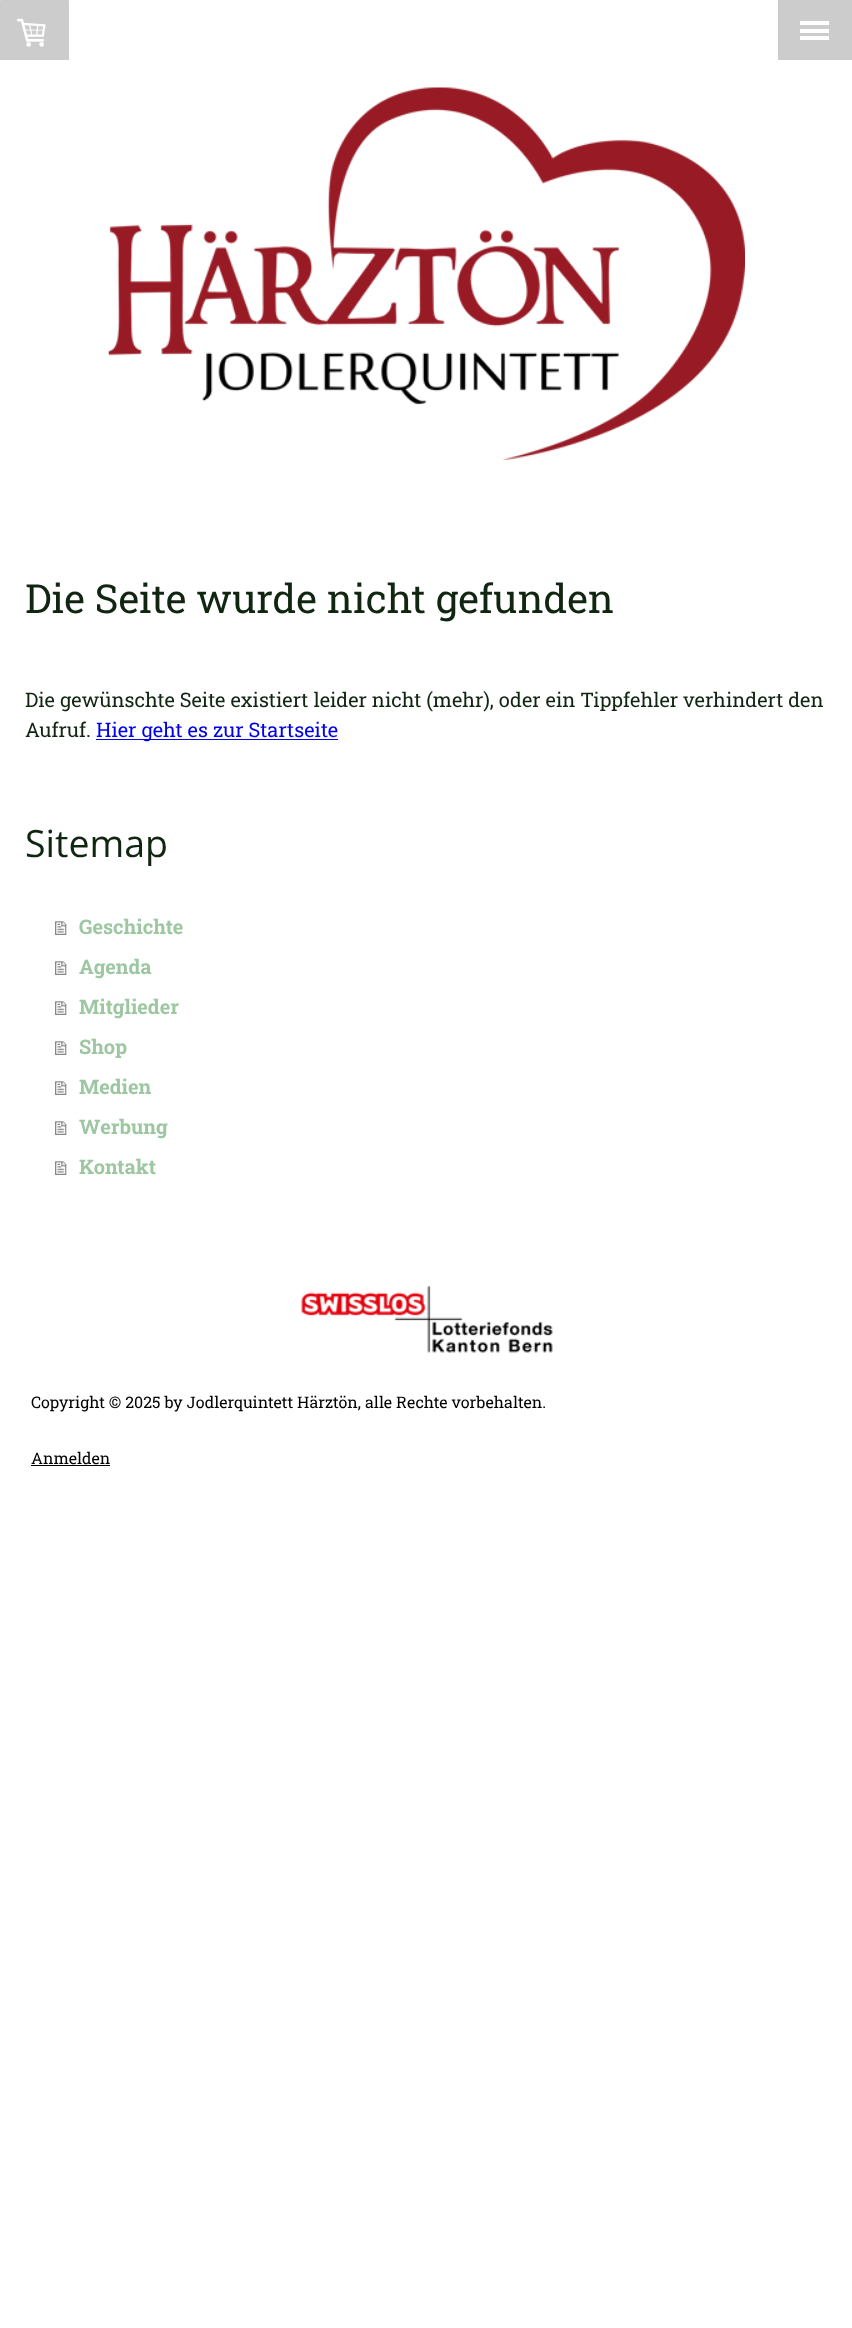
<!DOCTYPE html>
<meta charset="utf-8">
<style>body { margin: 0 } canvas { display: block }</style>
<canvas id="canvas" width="852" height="2328"></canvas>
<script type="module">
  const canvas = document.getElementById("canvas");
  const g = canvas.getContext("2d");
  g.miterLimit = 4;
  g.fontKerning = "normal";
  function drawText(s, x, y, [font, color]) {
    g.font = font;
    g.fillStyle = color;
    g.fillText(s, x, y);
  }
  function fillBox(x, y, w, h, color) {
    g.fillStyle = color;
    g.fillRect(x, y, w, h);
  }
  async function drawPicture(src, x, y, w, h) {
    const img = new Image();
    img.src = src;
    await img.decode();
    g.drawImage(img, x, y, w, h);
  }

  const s1 = ["40px Roboto Slab", "#112611"];
  const s2 = ["20px Roboto Slab", "#112611"];
  const s3 = ["20px Roboto Slab", "#0000EE"];
  const s4 = ["37.5px Open Sans", "#112611"];
  const s5 = ["bold 20px Roboto Slab", "#9CC7A1"];
  const s6 = ["16px Roboto Slab", "#000000"];

  fillBox(0, 0, 852, 2328, "#FFFFFF");
  g.fillStyle = "#CCCCCC";
  g.beginPath();
  g.roundRect(0, 0, 69, 60, [1, 1, 0, 0]);
  g.fill();
  await drawPicture("pic1.png", 16, 18, 30, 29);
  fillBox(778, 0, 74, 60, "#CCCCCC");
  fillBox(800, 29, 29, 4, "#FFFFFF");
  fillBox(800, 21, 29, 4, "#FFFFFF");
  fillBox(800, 36, 29, 4, "#FFFFFF");
  await drawPicture("pic2.png", 108, 87, 637, 373);
  drawText("Die Seite wurde nicht gefunden", 25, 613, s1);
  drawText("Die gewünschte Seite existiert leider nicht (mehr), oder ein Tippfehler verhindert den", 25, 707, s2);
  drawText("Aufruf.", 25, 737, s2);
  fillBox(96, 739, 242, 1, "#0000EE");
  drawText("Hier geht es zur Startseite", 96, 737, s3);
  drawText("Sitemap", 25, 857, s4);
  await drawPicture("pic3.png", 55, 921, 12, 14);
  drawText("Geschichte", 79, 934, s5);
  await drawPicture("pic3.png", 55, 961, 12, 14);
  drawText("Agenda", 79, 974, s5);
  await drawPicture("pic3.png", 55, 1001, 12, 14);
  drawText("Mitglieder", 79, 1014, s5);
  await drawPicture("pic3.png", 55, 1041, 12, 14);
  drawText("Shop", 79, 1054, s5);
  await drawPicture("pic3.png", 55, 1081, 12, 14);
  drawText("Medien", 79, 1094, s5);
  await drawPicture("pic3.png", 55, 1121, 12, 14);
  drawText("Werbung", 79, 1134, s5);
  await drawPicture("pic3.png", 55, 1161, 12, 14);
  drawText("Kontakt", 79, 1174, s5);
  await drawPicture("pic4.png", 301, 1286, 252, 67);
  drawText("Copyright © 2025 by Jodlerquintett Härztön, alle Rechte vorbehalten.", 31, 1408, s6);
  drawText("Anmelden", 31, 1464, s6);
  fillBox(31, 1465, 79, 1, "#000000");
</script>
